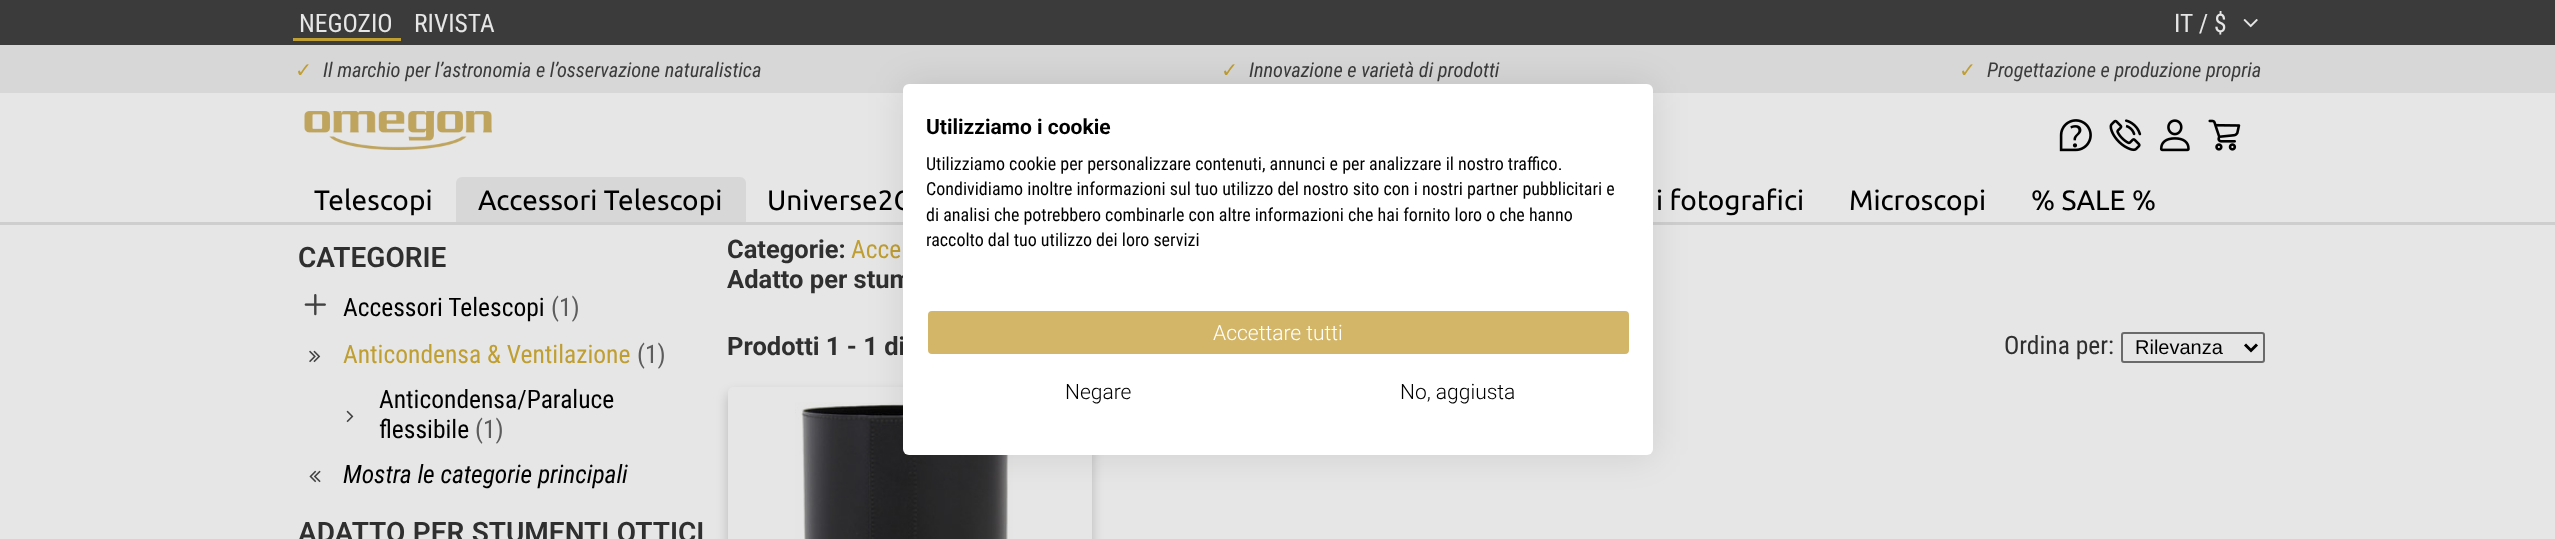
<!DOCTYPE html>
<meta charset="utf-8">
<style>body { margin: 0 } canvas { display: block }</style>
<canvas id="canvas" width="2555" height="539"></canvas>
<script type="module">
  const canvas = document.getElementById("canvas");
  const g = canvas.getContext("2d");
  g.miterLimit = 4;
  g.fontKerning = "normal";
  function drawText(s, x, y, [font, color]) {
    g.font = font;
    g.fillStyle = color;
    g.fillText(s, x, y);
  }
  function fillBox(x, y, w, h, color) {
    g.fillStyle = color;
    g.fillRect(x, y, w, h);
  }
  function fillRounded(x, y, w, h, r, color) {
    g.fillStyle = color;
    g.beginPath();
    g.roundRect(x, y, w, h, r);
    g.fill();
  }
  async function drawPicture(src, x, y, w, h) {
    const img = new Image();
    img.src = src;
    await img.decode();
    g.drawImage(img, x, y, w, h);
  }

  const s1 = ["25.5px Roboto Condensed", "#E6E6E6"];
  const s2 = ["20.4px DejaVu Sans", "#BF9E32"];
  const s3 = ["italic 20.4px Roboto Condensed", "#3B3B3C"];
  const s4 = ["28px Ubuntu", "#000000"];
  const s5 = ["600 28px Roboto", "#2F2F2F"];
  const s6 = ["25.5px Roboto Condensed", "#000000"];
  const s7 = ["25.5px Roboto Condensed", "#5C5C5C"];
  const s8 = ["25.5px Roboto Condensed", "#BF9E32"];
  const s9 = ["italic 25.5px Roboto Condensed", "#000000"];
  const s10 = ["bold 25.5px Roboto", "#2F2F2F"];
  const s11 = ["25.5px Roboto Condensed", "#2F2F2F"];
  const s12 = ["20px Liberation Sans", "#000000"];
  const s13 = ["bold 21px Roboto", "#000000"];
  const s14 = ["18px Roboto Condensed", "#000000"];
  const s15 = ["300 21px Roboto", "#FFFFFF"];
  const s16 = ["300 21px Roboto", "#000000"];

  fillBox(0, 0, 2555, 539, "#E6E6E6");
  fillBox(0, 0, 2555, 45, "#3B3B3C");
  drawText("NEGOZIO", 299, 32, s1);
  fillBox(293, 38, 108, 3, "#BF9E32");
  drawText("RIVISTA", 414, 32, s1);
  drawText("IT / $", 2174, 32, s1);
  await drawPicture("pic1.png", 2243, 19, 15, 9);
  fillBox(0, 45, 2555, 48, "#D7D7D7");
  drawText("✓", 295, 77, s2);
  drawText("Il marchio per l’astronomia e l’osservazione naturalistica", 323, 77, s3);
  drawText("✓", 1221, 77, s2);
  drawText("Innovazione e varietà di prodotti", 1249, 77, s3);
  drawText("✓", 1959, 77, s2);
  drawText("Progettazione e produzione propria", 1987, 77, s3);
  await drawPicture("pic2.png", 304, 111, 188, 39);
  await drawPicture("pic3.png", 2059, 119, 33, 33);
  await drawPicture("pic4.png", 2109, 119, 33, 33);
  await drawPicture("pic5.png", 2159, 119, 31, 33);
  await drawPicture("pic6.png", 2208, 119, 33, 32);
  drawText("Telescopi", 314, 210, s4);
  g.fillStyle = "#D7D7D7";
  g.beginPath();
  g.roundRect(456, 177, 290, 45, [6, 6, 0, 0]);
  g.fill();
  drawText("Accessori Telescopi", 478, 210, s4);
  drawText("Universe2G", 767, 210, s4);
  drawText("i fotografici", 1656, 210, s4);
  drawText("Microscopi", 1849, 210, s4);
  drawText("% SALE %", 2031, 210, s4);
  fillBox(0, 222, 2555, 3, "#CECECE");
  drawText("CATEGORIE", 298, 267, s5);
  await drawPicture("pic7.png", 304, 294, 22, 22);
  drawText("Accessori Telescopi", 343, 316, s6);
  drawText("(1)", 551, 316, s7);
  await drawPicture("pic8.png", 309, 350, 12, 13);
  drawText("Anticondensa & Ventilazione", 343, 363, s8);
  drawText("(1)", 637, 363, s7);
  await drawPicture("pic9.png", 346, 410, 8, 13);
  drawText("Anticondensa/Paraluce", 379, 408, s6);
  drawText("flessibile", 379, 438, s6);
  drawText("(1)", 475, 438, s7);
  await drawPicture("pic10.png", 309, 470, 12, 13);
  drawText("Mostra le categorie principali", 343, 483, s9);
  g.wordSpacing = "0.5px";
  drawText("ADATTO PER STUMENTI OTTICI", 298, 542, s5);
  g.wordSpacing = "0px";
  drawText("Categorie:", 727, 258, s10);
  drawText("Acce", 851, 258, s8);
  drawText("Adatto per stum", 727, 288, s10);
  drawText("Prodotti 1 - 1 di", 727, 355, s10);
  drawText("Ordina per:", 2004, 354, s11);
  g.beginPath();
  g.roundRect(2122, 333, 142, 29, 2);
  g.strokeStyle = "#6A6A6A";
  g.lineWidth = 2;
  g.stroke();
  g.beginPath();
  g.moveTo(2245, 344.5);
  g.lineTo(2251, 350.5);
  g.lineTo(2257, 344.5);
  g.strokeStyle = "#000000";
  g.lineWidth = 3;
  g.stroke();
  drawText("Rilevanza", 2135, 354, s12);
  g.save();
  g.beginPath();
  g.moveTo(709, 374);
  g.lineTo(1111, 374);
  g.lineTo(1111, 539);
  g.lineTo(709, 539);
  g.closePath();
  g.moveTo(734, 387);
  g.lineTo(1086, 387);
  g.bezierCurveTo(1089.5, 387, 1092, 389.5, 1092, 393);
  g.lineTo(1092, 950);
  g.bezierCurveTo(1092, 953.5, 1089.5, 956, 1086, 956);
  g.lineTo(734, 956);
  g.bezierCurveTo(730.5, 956, 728, 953.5, 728, 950);
  g.lineTo(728, 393);
  g.bezierCurveTo(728, 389.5, 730.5, 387, 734, 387);
  g.closePath();
  g.clip("evenodd");
  g.fillStyle = "rgba(0, 0, 0, 0.2)";
  g.filter = "blur(6px)";
  g.beginPath();
  g.roundRect(728, 393, 364, 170, 6);
  g.fill();
  g.filter = "none";
  g.restore();
  await drawPicture("pic11.png", 795, 402, 218, 137);
  g.fillStyle = "rgba(0, 0, 0, 0.1)";
  g.filter = "blur(18px)";
  g.beginPath();
  g.roundRect(903, 84, 750, 371, 6);
  g.fill();
  g.filter = "none";
  fillRounded(903, 84, 750, 371, 6, "#FFFFFF");
  drawText("Utilizziamo i cookie", 926, 134, s13);
  drawText("Utilizziamo cookie per personalizzare contenuti, annunci e per analizzare il nostro traffico.", 926, 170, s14);
  drawText("Condividiamo inoltre informazioni sul tuo utilizzo del nostro sito con i nostri partner pubblicitari e", 926, 195, s14);
  drawText("di analisi che potrebbero combinarle con altre informazioni che hai fornito loro o che hanno", 926, 221, s14);
  drawText("raccolto dal tuo utilizzo dei loro servizi", 926, 246, s14);
  g.fillStyle = "#D4B668";
  g.beginPath();
  g.roundRect(927, 310, 703, 45, 5);
  g.fill();
  g.strokeStyle = "#FFFFFF";
  g.lineWidth = 2;
  g.stroke();
  drawText("Accettare tutti", 1213, 340, s15);
  drawText("Negare", 1065, 399, s16);
  drawText("No, aggiusta", 1400, 399, s16);
</script>
